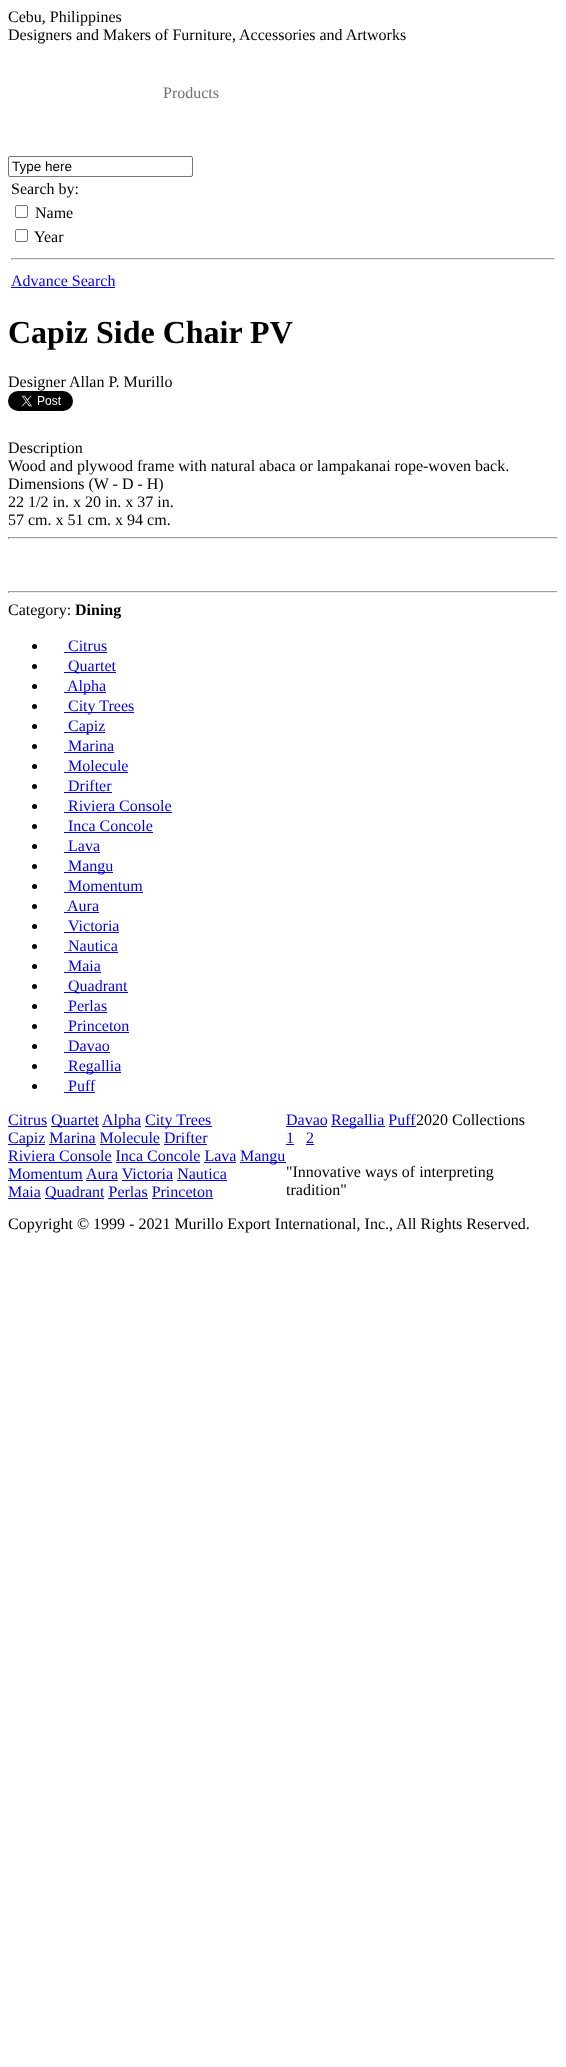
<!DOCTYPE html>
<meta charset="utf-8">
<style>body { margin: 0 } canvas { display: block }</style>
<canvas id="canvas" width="566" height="2067"></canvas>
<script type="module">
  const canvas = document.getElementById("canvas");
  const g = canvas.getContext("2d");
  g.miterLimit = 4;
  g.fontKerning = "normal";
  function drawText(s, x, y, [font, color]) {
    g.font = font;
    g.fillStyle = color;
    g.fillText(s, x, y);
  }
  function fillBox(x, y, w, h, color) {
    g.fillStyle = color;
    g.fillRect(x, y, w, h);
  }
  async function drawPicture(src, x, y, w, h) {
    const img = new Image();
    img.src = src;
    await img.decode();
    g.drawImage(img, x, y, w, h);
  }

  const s1 = ["16px Liberation Serif", "#000000"];
  const s2 = ["16px Liberation Serif", "#707070"];
  const s3 = ["13.5px Liberation Sans", "#000000"];
  const s4 = ["16px Liberation Serif", "#0000EE"];
  const s5 = ["bold 32px Liberation Serif", "#000000"];
  const s6 = ["bold 16px Liberation Serif", "#000000"];

  fillBox(0, 0, 566, 2067, "#FFFFFF");
  drawText("Cebu, Philippines", 8, 22, s1);
  drawText("Designers and Makers of Furniture, Accessories and Artworks", 8, 40, s1);
  drawText("Products", 163, 98, s2);
  g.beginPath();
  g.roundRect(8.5, 156.5, 184, 20, 1.5);
  g.strokeStyle = "#767676";
  g.stroke();
  drawText("Type here", 12, 171, s3);
  drawText("Search by:", 11, 194, s1);
  g.beginPath();
  g.roundRect(15.5, 205.5, 12, 12, 1.5);
  g.stroke();
  drawText("Name", 35, 218, s1);
  g.beginPath();
  g.roundRect(15.5, 229.5, 12, 12, 1.5);
  g.stroke();
  drawText("Year", 34, 242, s1);
  fillBox(11, 258, 544, 1, "#9F9F9F");
  fillBox(554, 258, 1, 2, "#EEEEEE");
  fillBox(11, 259, 544, 1, "#EEEEEE");
  fillBox(11, 258, 1, 2, "#9F9F9F");
  drawText("Advance Search", 11, 286, s4);
  fillBox(11, 287, 104, 1, "#0000EE");
  drawText("Capiz Side Chair PV", 8, 343, s5);
  drawText("Designer Allan P. Murillo", 8, 387, s1);
  await drawPicture("pic1.png", 8, 391, 65, 20);
  drawText("Description", 8, 453, s1);
  drawText("Wood and plywood frame with natural abaca or lampakanai rope-woven back.", 8, 471, s1);
  drawText("Dimensions (W - D - H)", 8, 489, s1);
  drawText("22 1/2 in. x 20 in. x 37 in.", 8, 507, s1);
  drawText("57 cm. x 51 cm. x 94 cm.", 8, 525, s1);
  fillBox(8, 537, 550, 1, "#9F9F9F");
  fillBox(557, 537, 1, 2, "#EEEEEE");
  fillBox(8, 538, 550, 1, "#EEEEEE");
  fillBox(8, 537, 1, 2, "#9F9F9F");
  fillBox(8, 591, 550, 1, "#9F9F9F");
  fillBox(557, 591, 1, 2, "#EEEEEE");
  fillBox(8, 592, 550, 1, "#EEEEEE");
  fillBox(8, 591, 1, 2, "#9F9F9F");
  drawText("Category:", 8, 615, s1);
  drawText("Dining", 75, 615, s6);
  g.beginPath();
  g.arc(34.5, 646.5, 2.5, 0, Math.PI * 2);
  g.fill();
  drawText("Citrus", 68, 651, s4);
  fillBox(64, 652, 43, 1, "#0000EE");
  g.fillStyle = "#000000";
  g.beginPath();
  g.arc(34.5, 666.5, 2.5, 0, Math.PI * 2);
  g.fill();
  fillBox(64, 672, 52, 1, "#0000EE");
  drawText("Quartet", 68, 671, s4);
  g.fillStyle = "#000000";
  g.beginPath();
  g.arc(34.5, 686.5, 2.5, 0, Math.PI * 2);
  g.fill();
  fillBox(64, 692, 42, 1, "#0000EE");
  drawText("Alpha", 67, 691, s4);
  g.fillStyle = "#000000";
  g.beginPath();
  g.arc(34.5, 706.5, 2.5, 0, Math.PI * 2);
  g.fill();
  fillBox(64, 712, 70, 1, "#0000EE");
  drawText("City Trees", 68, 711, s4);
  g.fillStyle = "#000000";
  g.beginPath();
  g.arc(34.5, 726.5, 2.5, 0, Math.PI * 2);
  g.fill();
  fillBox(64, 732, 41, 1, "#0000EE");
  drawText("Capiz", 68, 731, s4);
  g.fillStyle = "#000000";
  g.beginPath();
  g.arc(34.5, 746.5, 2.5, 0, Math.PI * 2);
  g.fill();
  drawText("Marina", 68, 751, s4);
  fillBox(64, 752, 50, 1, "#0000EE");
  g.fillStyle = "#000000";
  g.beginPath();
  g.arc(34.5, 766.5, 2.5, 0, Math.PI * 2);
  g.fill();
  drawText("Molecule", 68, 771, s4);
  fillBox(64, 772, 64, 1, "#0000EE");
  g.fillStyle = "#000000";
  g.beginPath();
  g.arc(34.5, 786.5, 2.5, 0, Math.PI * 2);
  g.fill();
  drawText("Drifter", 68, 791, s4);
  fillBox(64, 792, 48, 1, "#0000EE");
  g.fillStyle = "#000000";
  g.beginPath();
  g.arc(34.5, 806.5, 2.5, 0, Math.PI * 2);
  g.fill();
  drawText("Riviera Console", 68, 811, s4);
  fillBox(64, 812, 108, 1, "#0000EE");
  g.fillStyle = "#000000";
  g.beginPath();
  g.arc(34.5, 826.5, 2.5, 0, Math.PI * 2);
  g.fill();
  drawText("Inca Concole", 68, 831, s4);
  fillBox(64, 832, 89, 1, "#0000EE");
  g.fillStyle = "#000000";
  g.beginPath();
  g.arc(34.5, 846.5, 2.5, 0, Math.PI * 2);
  g.fill();
  drawText("Lava", 68, 851, s4);
  fillBox(64, 852, 36, 1, "#0000EE");
  g.fillStyle = "#000000";
  g.beginPath();
  g.arc(34.5, 866.5, 2.5, 0, Math.PI * 2);
  g.fill();
  fillBox(64, 872, 49, 1, "#0000EE");
  drawText("Mangu", 68, 871, s4);
  g.fillStyle = "#000000";
  g.beginPath();
  g.arc(34.5, 886.5, 2.5, 0, Math.PI * 2);
  g.fill();
  drawText("Momentum", 68, 891, s4);
  fillBox(64, 892, 79, 1, "#0000EE");
  g.fillStyle = "#000000";
  g.beginPath();
  g.arc(34.5, 906.5, 2.5, 0, Math.PI * 2);
  g.fill();
  drawText("Aura", 67, 911, s4);
  fillBox(64, 912, 35, 1, "#0000EE");
  g.fillStyle = "#000000";
  g.beginPath();
  g.arc(34.5, 926.5, 2.5, 0, Math.PI * 2);
  g.fill();
  drawText("Victoria", 68, 931, s4);
  fillBox(64, 932, 55, 1, "#0000EE");
  g.fillStyle = "#000000";
  g.beginPath();
  g.arc(34.5, 946.5, 2.5, 0, Math.PI * 2);
  g.fill();
  drawText("Nautica", 68, 951, s4);
  fillBox(64, 952, 54, 1, "#0000EE");
  g.fillStyle = "#000000";
  g.beginPath();
  g.arc(34.5, 966.5, 2.5, 0, Math.PI * 2);
  g.fill();
  drawText("Maia", 68, 971, s4);
  fillBox(64, 972, 37, 1, "#0000EE");
  g.fillStyle = "#000000";
  g.beginPath();
  g.arc(34.5, 986.5, 2.5, 0, Math.PI * 2);
  g.fill();
  fillBox(64, 992, 64, 1, "#0000EE");
  drawText("Quadrant", 68, 991, s4);
  g.fillStyle = "#000000";
  g.beginPath();
  g.arc(34.5, 1006.5, 2.5, 0, Math.PI * 2);
  g.fill();
  drawText("Perlas", 68, 1011, s4);
  fillBox(64, 1012, 43, 1, "#0000EE");
  g.fillStyle = "#000000";
  g.beginPath();
  g.arc(34.5, 1026.5, 2.5, 0, Math.PI * 2);
  g.fill();
  drawText("Princeton", 68, 1031, s4);
  fillBox(64, 1032, 65, 1, "#0000EE");
  g.fillStyle = "#000000";
  g.beginPath();
  g.arc(34.5, 1046.5, 2.5, 0, Math.PI * 2);
  g.fill();
  drawText("Davao", 68, 1051, s4);
  fillBox(64, 1052, 46, 1, "#0000EE");
  g.fillStyle = "#000000";
  g.beginPath();
  g.arc(34.5, 1066.5, 2.5, 0, Math.PI * 2);
  g.fill();
  fillBox(64, 1072, 57, 1, "#0000EE");
  drawText("Regallia", 68, 1071, s4);
  g.fillStyle = "#000000";
  g.beginPath();
  g.arc(34.5, 1086.5, 2.5, 0, Math.PI * 2);
  g.fill();
  drawText("Puff", 68, 1091, s4);
  fillBox(64, 1092, 31, 1, "#0000EE");
  drawText("Citrus", 8, 1125, s4);
  fillBox(8, 1126, 39, 1, "#0000EE");
  fillBox(51, 1126, 48, 1, "#0000EE");
  drawText("Quartet", 51, 1125, s4);
  fillBox(102, 1126, 39, 1, "#0000EE");
  drawText("Alpha", 102, 1125, s4);
  fillBox(145, 1126, 67, 1, "#0000EE");
  drawText("City Trees", 145, 1125, s4);
  fillBox(8, 1144, 37, 1, "#0000EE");
  drawText("Capiz Marina Molecule Drifter", 8, 1143, s4);
  fillBox(49, 1144, 47, 1, "#0000EE");
  fillBox(100, 1144, 60, 1, "#0000EE");
  fillBox(164, 1144, 43, 1, "#0000EE");
  drawText("Riviera Console Inca Concole Lava", 8, 1161, s4);
  fillBox(8, 1162, 104, 1, "#0000EE");
  fillBox(240, 1162, 46, 1, "#0000EE");
  drawText("Mangu", 240, 1161, s4);
  fillBox(116, 1162, 84, 1, "#0000EE");
  fillBox(204, 1162, 32, 1, "#0000EE");
  drawText("Momentum", 8, 1179, s4);
  fillBox(8, 1180, 75, 1, "#0000EE");
  drawText("Aura Victoria Nautica", 86, 1179, s4);
  fillBox(86, 1180, 32, 1, "#0000EE");
  fillBox(122, 1180, 51, 1, "#0000EE");
  fillBox(177, 1180, 50, 1, "#0000EE");
  drawText("Maia", 8, 1197, s4);
  fillBox(8, 1198, 33, 1, "#0000EE");
  fillBox(45, 1198, 59, 1, "#0000EE");
  drawText("Quadrant Perlas Princeton", 45, 1197, s4);
  fillBox(108, 1198, 40, 1, "#0000EE");
  fillBox(152, 1198, 61, 1, "#0000EE");
  drawText("Davao", 286, 1125, s4);
  fillBox(286, 1126, 41, 1, "#0000EE");
  fillBox(331, 1126, 54, 1, "#0000EE");
  drawText("Regallia Puff", 331, 1125, s4);
  fillBox(389, 1126, 27, 1, "#0000EE");
  drawText("2020 Collections", 416, 1125, s1);
  drawText("1", 286, 1143, s4);
  fillBox(286, 1144, 8, 1, "#0000EE");
  drawText("2", 306, 1143, s4);
  fillBox(306, 1144, 8, 1, "#0000EE");
  drawText("\"Innovative ways of interpreting", 286, 1177, s1);
  drawText("tradition\"", 286, 1195, s1);
  drawText("Copyright © 1999 - 2021 Murillo Export International, Inc., All Rights Reserved.", 8, 1229, s1);
</script>
